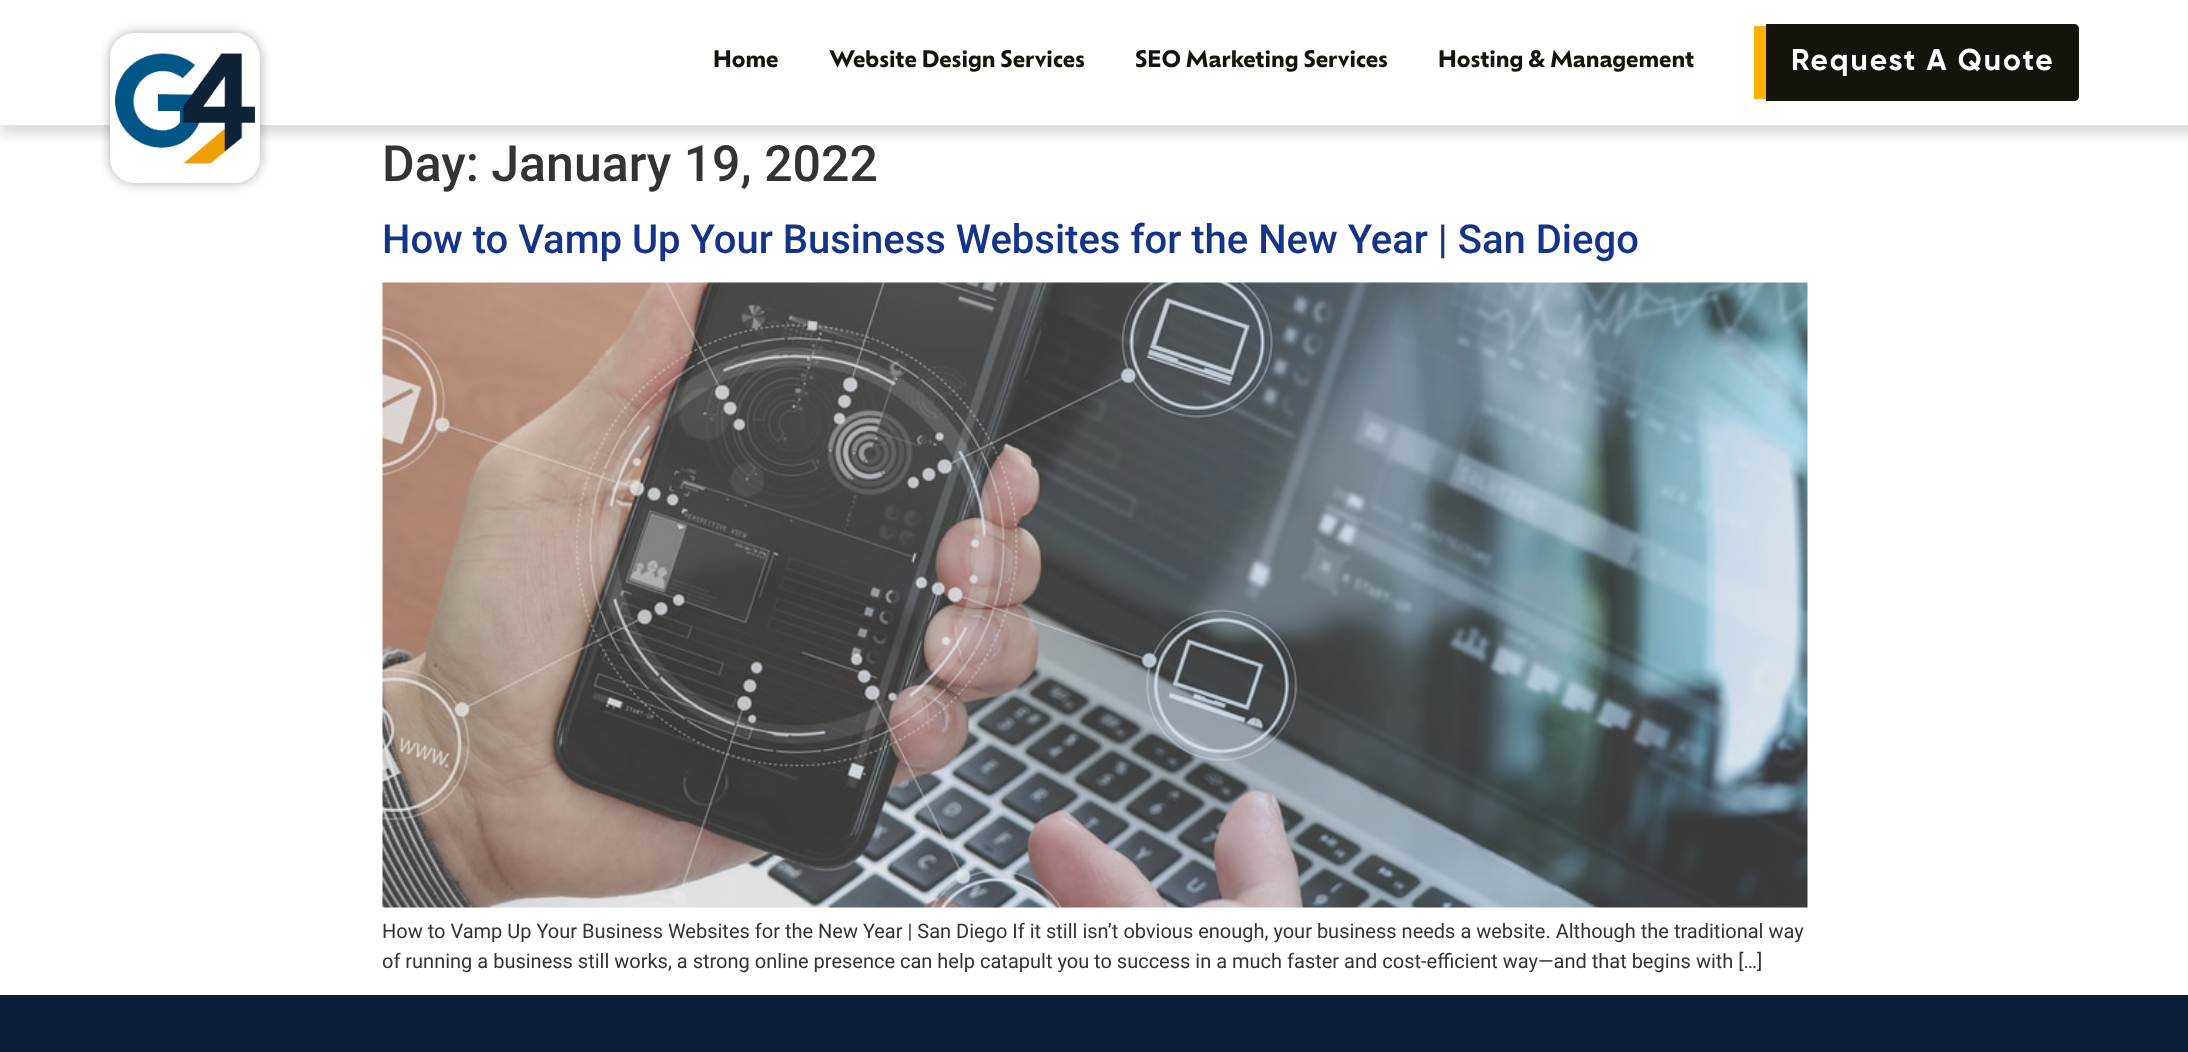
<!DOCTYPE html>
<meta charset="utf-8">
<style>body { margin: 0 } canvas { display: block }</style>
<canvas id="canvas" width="2188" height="1052"></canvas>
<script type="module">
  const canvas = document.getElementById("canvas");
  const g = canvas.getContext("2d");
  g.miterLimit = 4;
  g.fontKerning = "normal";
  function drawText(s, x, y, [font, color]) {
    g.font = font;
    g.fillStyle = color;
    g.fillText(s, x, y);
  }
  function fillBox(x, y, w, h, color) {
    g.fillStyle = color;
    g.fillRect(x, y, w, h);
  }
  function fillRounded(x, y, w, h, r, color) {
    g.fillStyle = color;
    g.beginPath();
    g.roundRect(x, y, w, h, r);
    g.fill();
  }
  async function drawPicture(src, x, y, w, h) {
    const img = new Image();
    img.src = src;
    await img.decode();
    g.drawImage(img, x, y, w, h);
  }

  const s1 = ["bold 22.5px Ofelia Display", "#13140B"];
  const s2 = ["bold 30px Gilroy", "#FFFFFF"];
  const s3 = ["500 50px Roboto", "#333333"];
  const s4 = ["500 40px Roboto", "#163487"];
  const s5 = ["20px Roboto", "#333333"];

  fillBox(0, 0, 2188, 1052, "#FFFFFF");
  g.save();
  g.beginPath();
  g.rect(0, 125, 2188, 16);
  g.clip();
  g.fillStyle = "rgba(0, 0, 0, 0.13)";
  g.filter = "blur(6px)";
  g.beginPath();
  g.rect(0, 0, 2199, 135);
  g.fill();
  g.filter = "none";
  g.restore();
  fillRounded(110, 33, 150, 150, 25, "#FFFFFF");
  g.save();
  g.beginPath();
  g.moveTo(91, 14);
  g.lineTo(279, 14);
  g.lineTo(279, 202);
  g.lineTo(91, 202);
  g.closePath();
  g.moveTo(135, 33);
  g.lineTo(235, 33);
  g.bezierCurveTo(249, 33, 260, 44, 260, 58);
  g.lineTo(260, 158);
  g.bezierCurveTo(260, 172, 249, 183, 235, 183);
  g.lineTo(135, 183);
  g.bezierCurveTo(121, 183, 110, 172, 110, 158);
  g.lineTo(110, 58);
  g.bezierCurveTo(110, 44, 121, 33, 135, 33);
  g.closePath();
  g.clip("evenodd");
  g.fillStyle = "rgba(0, 0, 0, 0.32)";
  g.filter = "blur(6px)";
  g.beginPath();
  g.roundRect(110, 33, 150, 150, 25);
  g.fill();
  g.filter = "none";
  g.restore();
  await drawPicture("pic1.png", 115, 53, 141, 111);
  drawText("Home", 713, 67, s1);
  drawText("Website Design Services", 829, 67, s1);
  drawText("SEO Marketing Services", 1135, 67, s1);
  drawText("Hosting & Management", 1438, 67, s1);
  g.beginPath();
  g.moveTo(1766, 24);
  g.lineTo(2074, 24);
  g.bezierCurveTo(2077, 24, 2079, 26, 2079, 29);
  g.lineTo(2079, 96);
  g.bezierCurveTo(2079, 99, 2077, 101, 2074, 101);
  g.lineTo(1766, 101);
  g.closePath();
  g.fill();
  fillBox(1754, 26, 12, 73, "#FFB003");
  g.letterSpacing = "1.9px";
  drawText("Request A Quote", 1791, 70, s2);
  g.letterSpacing = "0px";
  drawText("Day: January 19, 2022", 382, 181, s3);
  drawText("How to Vamp Up Your Business Websites for the New Year | San Diego", 382, 253, s4);
  await drawPicture("pic2.png", 382, 282, 1426, 626);
  drawText("How to Vamp Up Your Business Websites for the New Year | San Diego If it still isn’t obvious enough, your business needs a website. Although the traditional way", 382, 938, s5);
  drawText("of running a business still works, a strong online presence can help catapult you to success in a much faster and cost-efficient way—and that begins with […]", 382, 968, s5);
  fillBox(0, 995, 2188, 57, "#0B1C36");
</script>
